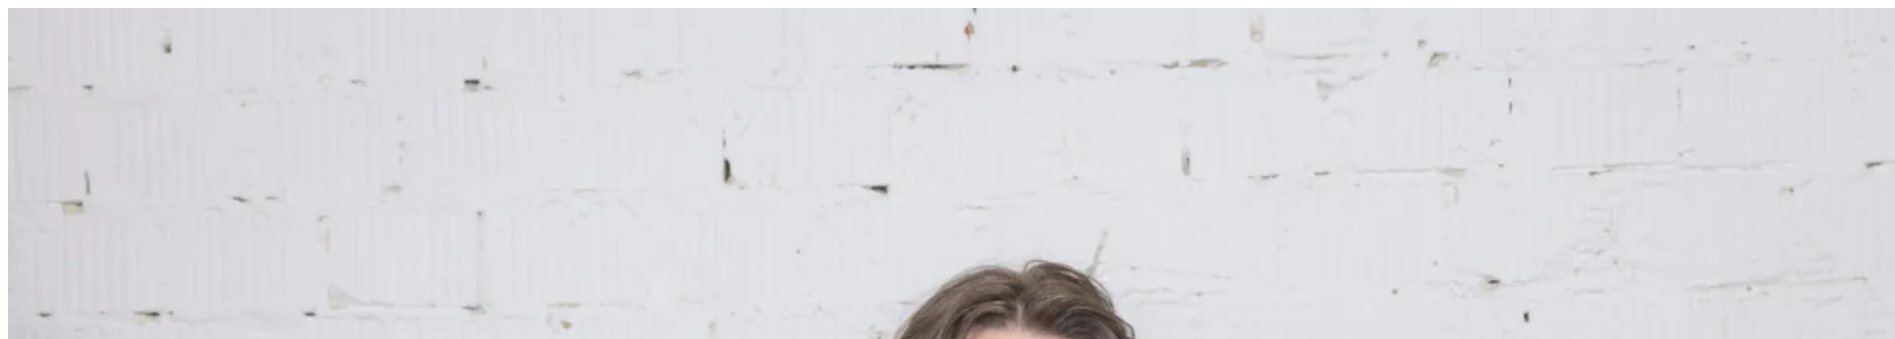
<!DOCTYPE html>
<meta charset="utf-8">
<style>body { margin: 0 } canvas { display: block }</style>
<canvas id="canvas" width="1895" height="339"></canvas>
<script type="module">
  const canvas = document.getElementById("canvas");
  const g = canvas.getContext("2d");
  g.miterLimit = 4;
  g.fontKerning = "normal";
  function fillBox(x, y, w, h, color) {
    g.fillStyle = color;
    g.fillRect(x, y, w, h);
  }
  async function drawPicture(src, x, y, w, h) {
    const img = new Image();
    img.src = src;
    await img.decode();
    g.drawImage(img, x, y, w, h);
  }

  fillBox(0, 0, 1895, 339, "#FFFFFF");
  await drawPicture("pic1.png", 8, 8, 1887, 331);
</script>
